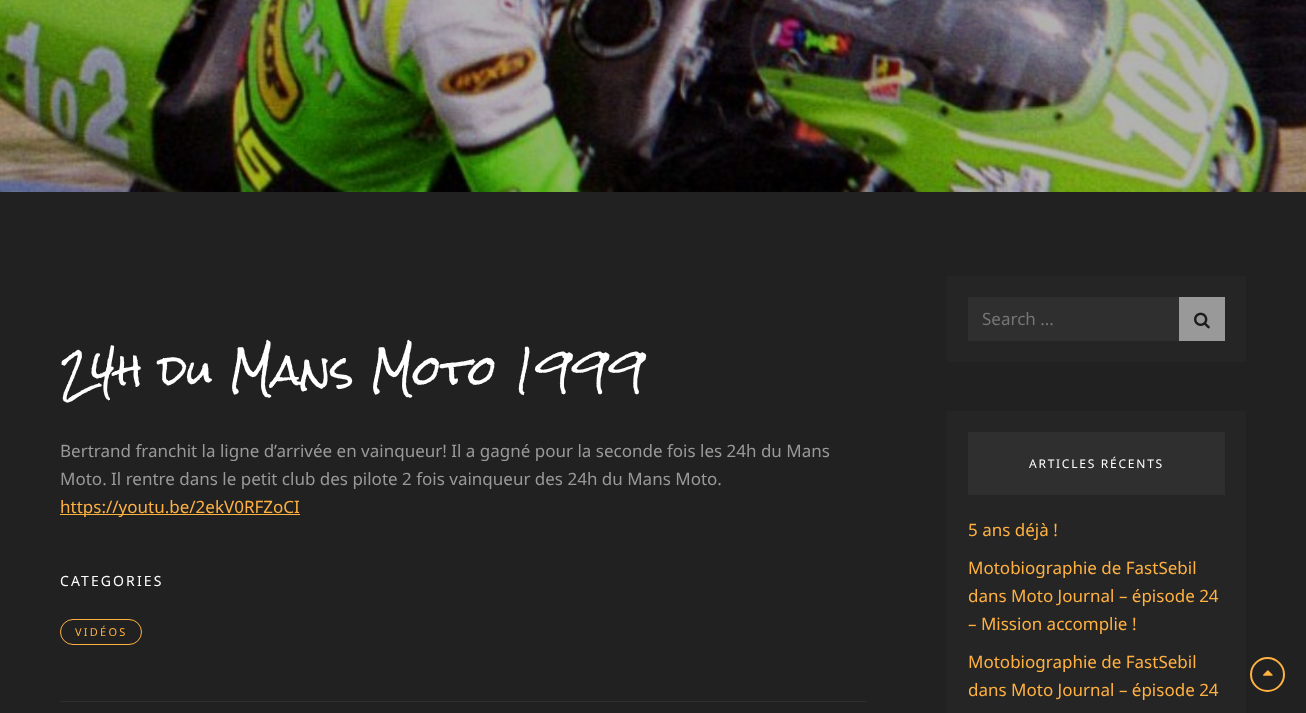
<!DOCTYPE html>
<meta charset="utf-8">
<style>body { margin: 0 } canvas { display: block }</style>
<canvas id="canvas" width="1306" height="713"></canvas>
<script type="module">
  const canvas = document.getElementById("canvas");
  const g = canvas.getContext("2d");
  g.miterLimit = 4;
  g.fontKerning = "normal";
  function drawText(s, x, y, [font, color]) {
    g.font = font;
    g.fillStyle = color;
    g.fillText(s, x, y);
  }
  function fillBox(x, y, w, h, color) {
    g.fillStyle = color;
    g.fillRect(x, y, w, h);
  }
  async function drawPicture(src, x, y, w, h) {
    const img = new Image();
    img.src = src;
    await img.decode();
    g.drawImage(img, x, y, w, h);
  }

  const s1 = ["40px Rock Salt", "#FFFFFF"];
  const s2 = ["17px Noto Sans", "#999999"];
  const s3 = ["17px Noto Sans", "#FFB141"];
  const s4 = ["14px Noto Sans", "#FFFFFF"];
  const s5 = ["11px Noto Sans", "#FFB141"];
  const s6 = ["17px Noto Sans", "#757575"];
  const s7 = ["12px Noto Sans", "#FFFFFF"];

  fillBox(0, 0, 1306, 713, "#212121");
  await drawPicture("pic1.png", 0, 0, 1306, 192);
  drawText("24h du Mans Moto 1999", 60, 386, s1);
  drawText("Bertrand franchit la ligne d’arrivée en vainqueur! Il a gagné pour la seconde fois les 24h du Mans", 60, 457, s2);
  drawText("Moto. Il rentre dans le petit club des pilote 2 fois vainqueur des 24h du Mans Moto.", 60, 485, s2);
  fillBox(60, 514, 240, 1, "#FFB141");
  drawText("https://youtu.be/2ekV0RFZoCI", 60, 513, s3);
  g.letterSpacing = "2.1px";
  drawText("CATEGORIES", 60, 586, s4);
  g.beginPath();
  g.roundRect(60.5, 619.5, 81, 25, 12.5);
  g.strokeStyle = "#FFB141";
  g.stroke();
  g.letterSpacing = "2.25px";
  drawText("VIDÉOS", 75, 636, s5);
  fillBox(60, 701, 807, 1, "#2F2F2F");
  fillBox(947, 276, 299, 86, "#252525");
  fillBox(968, 297, 211, 44, "#2F2F2F");
  g.letterSpacing = "0px";
  drawText("Search ...", 982, 325, s6);
  fillBox(1179, 297, 46, 44, "#999999");
  await drawPicture("pic2.png", 1194, 312, 16, 17);
  fillBox(947, 411, 299, 302, "#252525");
  fillBox(968, 432, 257, 63, "#2F2F2F");
  g.letterSpacing = "1.75px";
  drawText("ARTICLES RÉCENTS", 1029, 468, s7);
  g.letterSpacing = "0px";
  drawText("5 ans déjà !", 968, 536, s3);
  drawText("Motobiographie de FastSebil", 968, 574, s3);
  drawText("dans Moto Journal – épisode 24", 968, 602, s3);
  drawText("– Mission accomplie !", 968, 630, s3);
  drawText("Motobiographie de FastSebil", 968, 668, s3);
  drawText("dans Moto Journal – épisode 24", 968, 696, s3);
  g.beginPath();
  g.arc(1267.5, 674.5, 16.5, 0, Math.PI * 2);
  g.lineWidth = 2;
  g.stroke();
  await drawPicture("pic3.png", 1263, 670, 10, 6);
</script>
